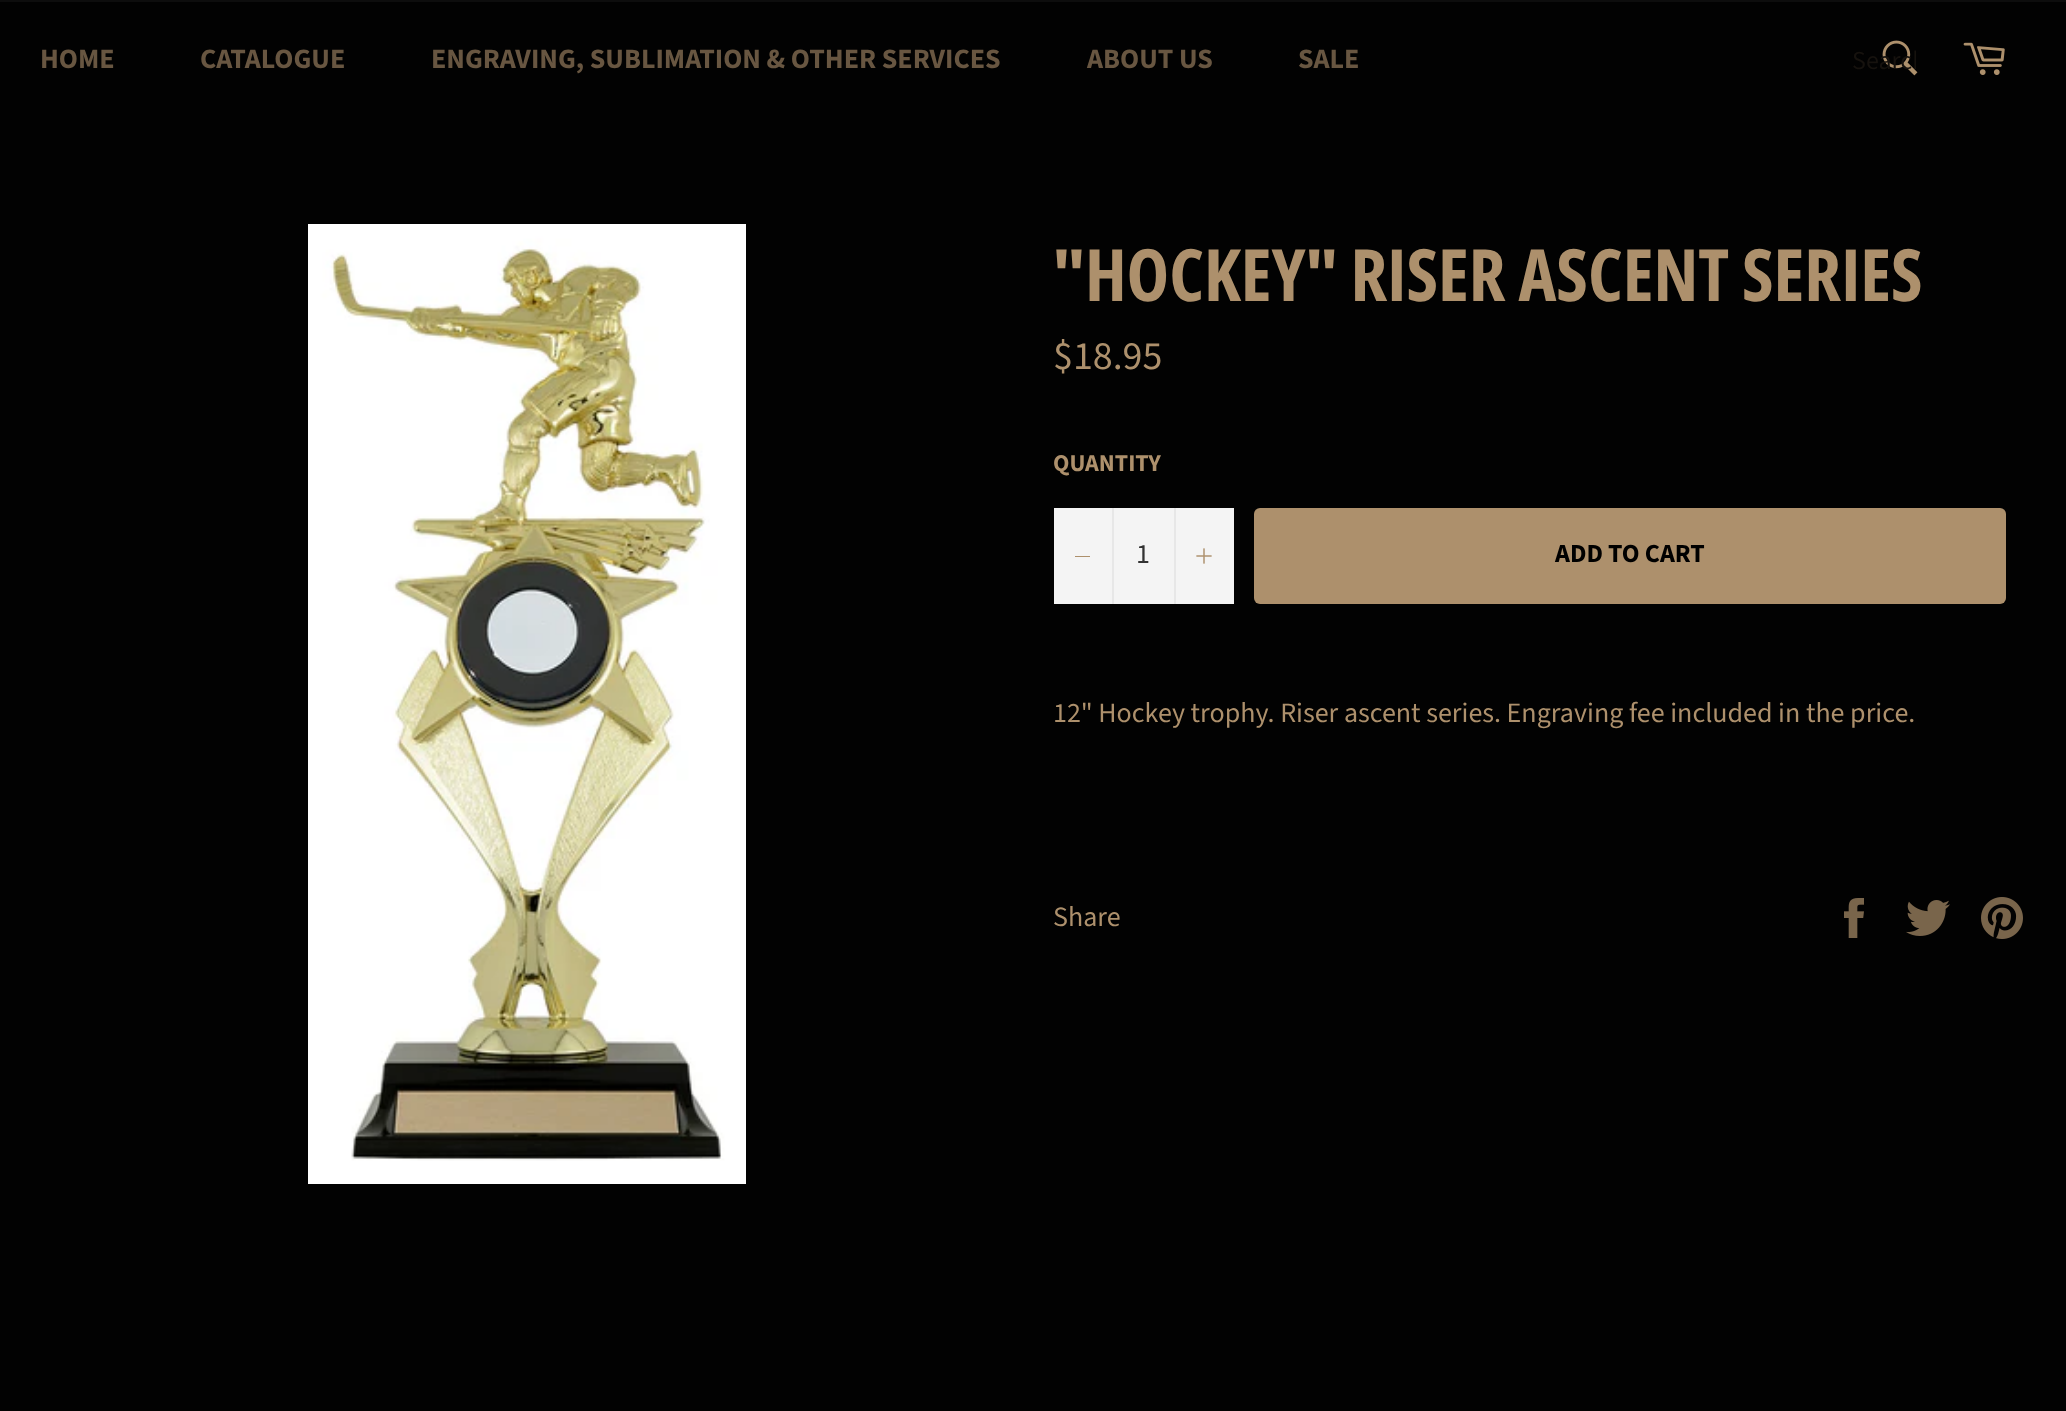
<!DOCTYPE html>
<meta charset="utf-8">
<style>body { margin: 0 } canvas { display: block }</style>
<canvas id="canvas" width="2066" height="1411"></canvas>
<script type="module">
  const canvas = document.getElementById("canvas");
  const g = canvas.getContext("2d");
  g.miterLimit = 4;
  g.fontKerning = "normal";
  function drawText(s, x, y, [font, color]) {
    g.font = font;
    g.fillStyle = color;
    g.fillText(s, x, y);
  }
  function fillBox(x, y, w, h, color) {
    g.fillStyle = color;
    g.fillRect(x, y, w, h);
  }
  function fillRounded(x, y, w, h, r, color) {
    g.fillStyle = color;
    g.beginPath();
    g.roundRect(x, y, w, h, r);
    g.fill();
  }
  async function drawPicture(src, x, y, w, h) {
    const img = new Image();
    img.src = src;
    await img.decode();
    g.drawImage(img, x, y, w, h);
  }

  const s1 = ["bold 28px Source Sans Pro", "#685641"];
  const s2 = ["26px Source Sans Pro", "#16120E"];
  const s3 = ["bold 72px Open Sans Condensed", "#AD906C"];
  const s4 = ["40px Source Sans Pro", "#AD906C"];
  const s5 = ["bold 24px Source Sans Pro", "#AD906C"];
  const s6 = ["28px Source Sans Pro", "#333333"];
  const s7 = ["bold 26px Source Sans Pro", "#000000"];
  const s8 = ["28px Source Sans Pro", "#AD906C"];

  fillBox(0, 0, 2066, 1411, "#020202");
  fillBox(0, 0, 2066, 2, "#0D0D0D");
  drawText("HOME", 40, 68, s1);
  drawText("CATALOGUE", 200, 68, s1);
  drawText("ENGRAVING, SUBLIMATION & OTHER SERVICES", 431, 68, s1);
  drawText("ABOUT US", 1087, 68, s1);
  drawText("SALE", 1298, 68, s1);
  await drawPicture("pic1.png", 1882, 40, 36, 36);
  g.save();
  g.beginPath();
  g.rect(1852, 44, 64, 36);
  g.clip();
  drawText("Search", 1852, 69, s2);
  g.restore();
  await drawPicture("pic2.png", 1963, 42, 42, 33);
  await drawPicture("pic3.png", 308, 224, 438, 960);
  drawText("\"HOCKEY\" RISER ASCENT SERIES", 1053, 301, s3);
  drawText("$18.95", 1053, 369, s4);
  drawText("QUANTITY", 1053, 471, s5);
  fillBox(1054, 508, 180, 96, "#F4F4F4");
  fillBox(1112, 508, 2, 96, "#E7E7E7");
  fillBox(1075, 556, 15, 1, "#AD906C");
  drawText("1", 1136, 563, s6);
  fillBox(1174, 508, 2, 96, "#E7E7E7");
  await drawPicture("pic4.png", 1196, 548, 16, 16);
  fillRounded(1254, 508, 752, 96, 6, "#AD906C");
  drawText("ADD TO CART", 1555, 562, s7);
  drawText("12\" Hockey trophy. Riser ascent series. Engraving fee included in the price.", 1053, 722, s8);
  drawText("Share", 1053, 926, s8);
  await drawPicture("pic5.png", 1844, 898, 20, 40);
  await drawPicture("pic6.png", 1906, 900, 44, 36);
  await drawPicture("pic7.png", 1981, 897, 42, 42);
</script>
